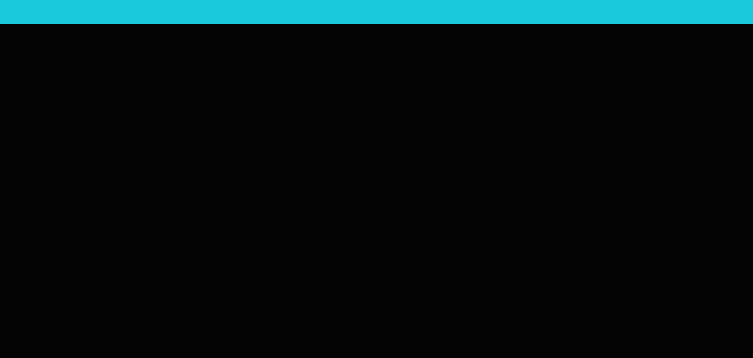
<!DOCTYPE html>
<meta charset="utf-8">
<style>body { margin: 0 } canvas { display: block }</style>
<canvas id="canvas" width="753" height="358"></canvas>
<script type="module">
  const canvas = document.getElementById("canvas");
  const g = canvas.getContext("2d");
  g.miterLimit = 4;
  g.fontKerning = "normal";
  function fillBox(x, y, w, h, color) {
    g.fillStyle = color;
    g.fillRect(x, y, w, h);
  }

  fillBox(0, 0, 753, 358, "#040404");
  fillBox(0, 0, 753, 24, "#1AC8DB");
</script>
